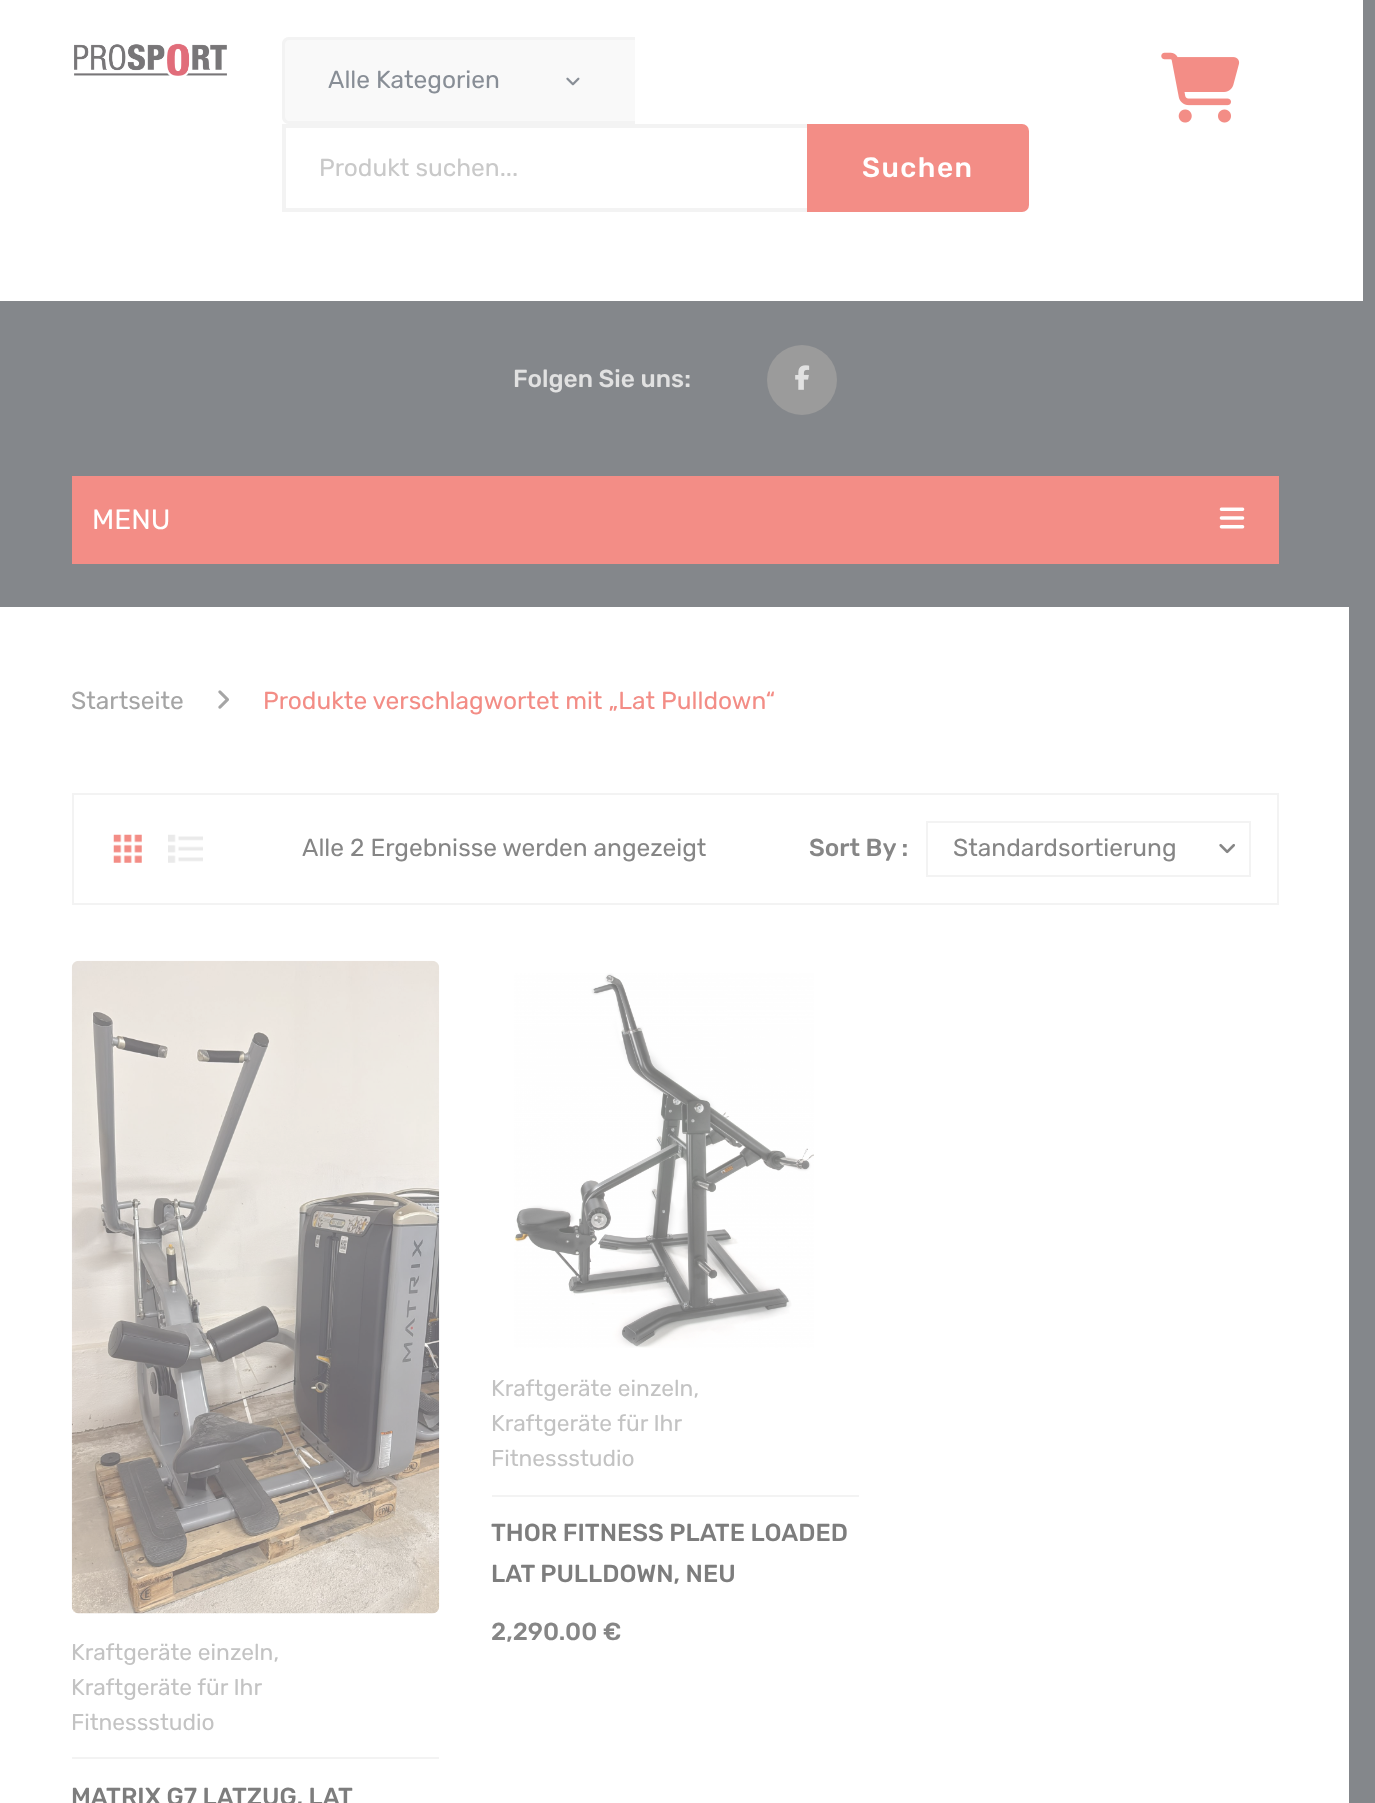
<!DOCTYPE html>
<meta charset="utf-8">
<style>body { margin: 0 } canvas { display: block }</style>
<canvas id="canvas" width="1375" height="1803"></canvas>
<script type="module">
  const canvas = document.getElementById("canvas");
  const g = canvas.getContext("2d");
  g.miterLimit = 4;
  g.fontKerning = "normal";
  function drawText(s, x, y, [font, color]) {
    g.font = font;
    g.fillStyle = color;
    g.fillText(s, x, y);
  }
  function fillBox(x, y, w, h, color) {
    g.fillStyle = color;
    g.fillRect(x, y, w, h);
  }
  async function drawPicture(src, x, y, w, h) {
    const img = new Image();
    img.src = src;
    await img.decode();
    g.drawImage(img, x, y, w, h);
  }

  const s1 = ["24.5px Rubik", "#888E96"];
  const s2 = ["24.5px Rubik", "#C9C9C9"];
  const s3 = ["500 28px Rubik", "#FFFFFF"];
  const s4 = ["500 24.5px Rubik", "#E1E1E1"];
  const s5 = ["28px Rubik", "#FFFFFF"];
  const s6 = ["24.5px Rubik", "#A5A5A5"];
  const s7 = ["24.5px Rubik", "#F38D86"];
  const s8 = ["24.5px Rubik", "#868686"];
  const s9 = ["500 24.5px Rubik", "#868686"];
  const s10 = ["22.75px Rubik", "#C3C3C3"];
  const s11 = ["500 24.5px Rubik", "#7D7D7D"];

  fillBox(0, 0, 1375, 1803, "#84878B");
  fillBox(0, 607, 1349, 1196, "#FFFFFF");
  fillBox(0, 0, 1363, 301, "#FFFFFF");
  await drawPicture("pic1.png", 74, 43, 153, 33);
  g.fillStyle = "#F9F9F9";
  g.beginPath();
  g.roundRect(282, 37, 353, 87, [7, 0, 0, 7]);
  g.fill();
  g.fillStyle = "#F3F3F3";
  g.beginPath();
  g.moveTo(289, 37);
  g.lineTo(635, 37);
  g.lineTo(635, 124);
  g.lineTo(289, 124);
  g.bezierCurveTo(285, 124, 282, 121, 282, 117);
  g.lineTo(282, 44);
  g.bezierCurveTo(282, 40, 285, 37, 289, 37);
  g.closePath();
  g.moveTo(289, 40);
  g.lineTo(635, 40);
  g.lineTo(635, 121);
  g.lineTo(289, 121);
  g.bezierCurveTo(287, 121, 285, 119, 285, 117);
  g.lineTo(285, 44);
  g.bezierCurveTo(285, 42, 287, 40, 289, 40);
  g.closePath();
  g.fill("evenodd");
  drawText("Alle Kategorien", 328, 88, s1);
  await drawPicture("pic2.png", 566, 77, 14, 9);
  fillBox(282, 124, 525, 4, "#F3F3F3");
  fillBox(282, 208, 525, 4, "#F3F3F3");
  fillBox(282, 124, 4, 88, "#F3F3F3");
  drawText("Produkt suchen...", 319, 176, s2);
  g.fillStyle = "#F38D86";
  g.beginPath();
  g.roundRect(807, 124, 222, 88, [0, 7, 7, 0]);
  g.fill();
  g.letterSpacing = "1.5px";
  drawText("Suchen", 862, 177, s3);
  await drawPicture("pic3.png", 1161, 52, 79, 71);
  g.letterSpacing = "0px";
  drawText("Folgen Sie uns:", 513, 387, s4);
  g.fillStyle = "#9B9B9B";
  g.beginPath();
  g.arc(802, 380, 35, 0, Math.PI * 2);
  g.fill();
  await drawPicture("pic4.png", 795, 365, 15, 25);
  fillBox(72, 476, 1207, 88, "#F38D86");
  drawText("MENU", 92, 529, s5);
  await drawPicture("pic5.png", 1219, 507, 26, 22);
  drawText("Startseite", 71, 709, s6);
  await drawPicture("pic6.png", 218, 690, 11, 19);
  drawText("Produkte verschlagwortet mit „Lat Pulldown“", 263, 709, s7);
  g.strokeStyle = "#F3F3F3";
  g.lineWidth = 2;
  g.strokeRect(73, 794, 1205, 110);
  await drawPicture("pic7.png", 113, 834, 29, 29);
  await drawPicture("pic8.png", 168, 834, 35, 29);
  drawText("Alle 2 Ergebnisse werden angezeigt", 302, 856, s8);
  drawText("Sort By :", 809, 856, s9);
  g.strokeRect(927, 822, 323, 54);
  drawText("Standardsortierung", 953, 856, s8);
  await drawPicture("pic9.png", 1219, 843, 16, 11);
  await drawPicture("pic10.png", 514, 973, 300, 375);
  fillBox(492, 1495, 367, 2, "#F3F3F3");
  drawText("Kraftgeräte einzeln,", 491, 1396, s10);
  drawText("Kraftgeräte für Ihr", 491, 1431, s10);
  drawText("Fitnessstudio", 491, 1466, s10);
  drawText("THOR FITNESS PLATE LOADED", 491, 1541, s11);
  drawText("LAT PULLDOWN, NEU", 491, 1582, s11);
  drawText("2,290.00 €", 491, 1640, s9);
  await drawPicture("pic11.png", 71, 960, 369, 654);
  fillBox(72, 1757, 367, 2, "#F3F3F3");
  drawText("Kraftgeräte einzeln,", 71, 1660, s10);
  drawText("Kraftgeräte für Ihr", 71, 1695, s10);
  drawText("Fitnessstudio", 71, 1730, s10);
  drawText("MATRIX G7 LATZUG, LAT", 71, 1805, s11);
</script>
